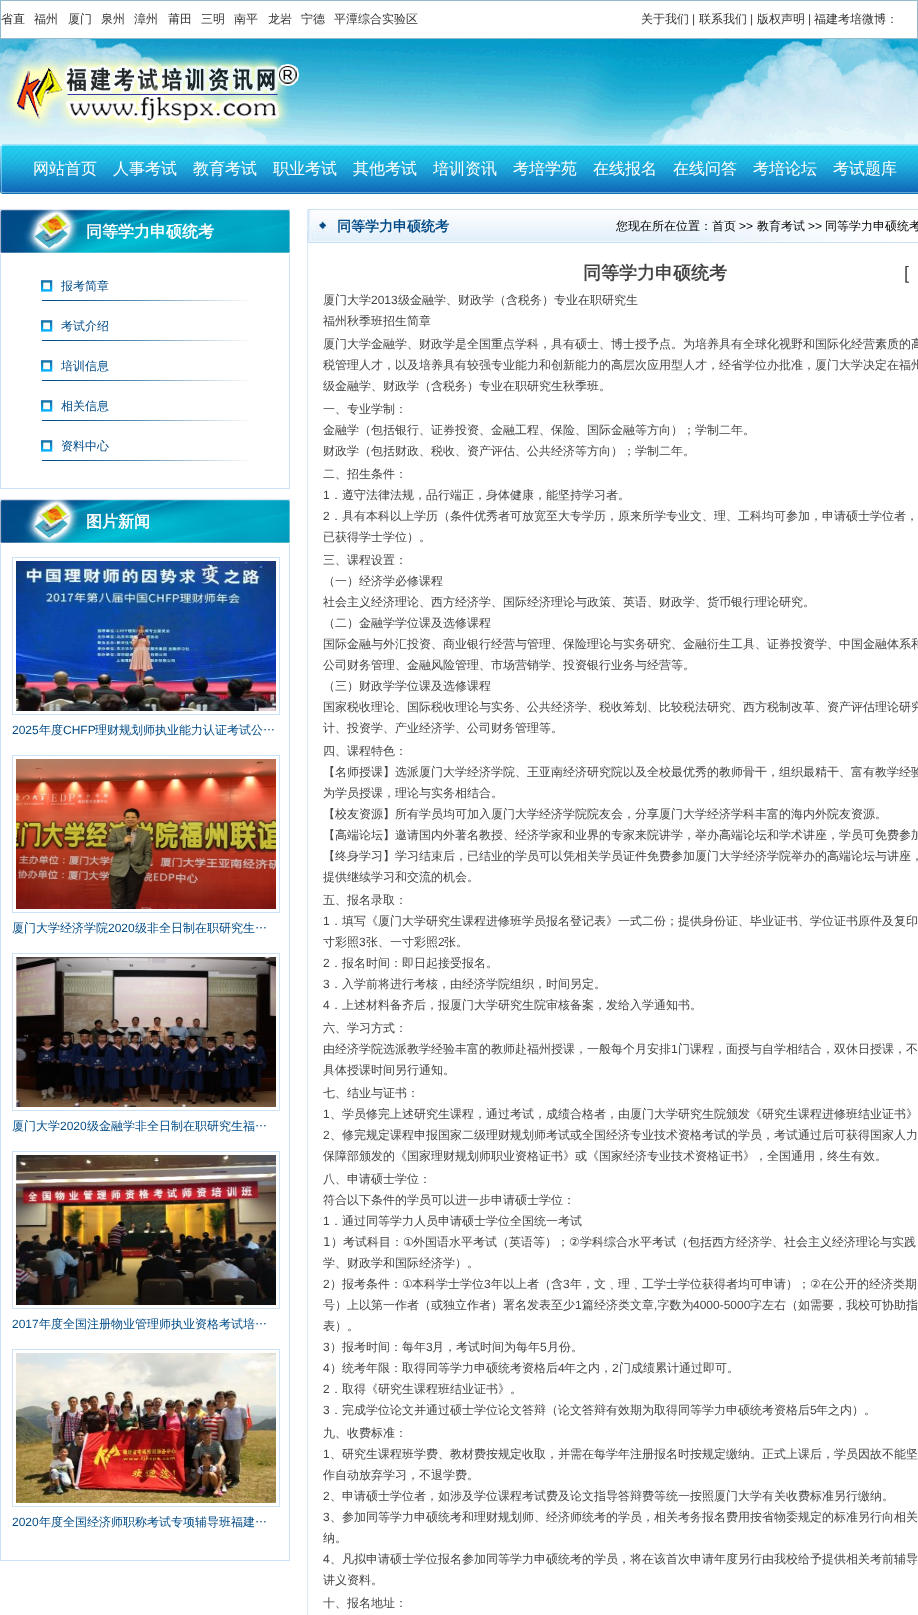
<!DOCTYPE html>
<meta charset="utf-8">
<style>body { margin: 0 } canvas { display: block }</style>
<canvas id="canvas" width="918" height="1615"></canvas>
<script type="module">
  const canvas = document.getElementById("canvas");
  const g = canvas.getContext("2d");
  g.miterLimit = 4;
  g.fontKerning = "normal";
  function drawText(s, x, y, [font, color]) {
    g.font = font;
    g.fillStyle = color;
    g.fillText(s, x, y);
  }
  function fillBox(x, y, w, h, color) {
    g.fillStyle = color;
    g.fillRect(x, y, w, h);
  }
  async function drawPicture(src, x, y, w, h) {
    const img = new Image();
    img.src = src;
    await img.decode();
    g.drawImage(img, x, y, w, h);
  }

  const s1 = ["500 12px WenQuanYi Zen Hei", "#333333"];
  const s2 = ["12px Liberation Sans", "#444444"];
  const s3 = ["500 12px WenQuanYi Zen Hei", "#444444"];
  const s4 = ["500 16px WenQuanYi Zen Hei", "#FFFFFF"];
  const s5 = ["bold 16px WenQuanYi Zen Hei", "#FFFFFF"];
  const s6 = ["500 12px WenQuanYi Zen Hei", "#004B87"];
  const s7 = ["12px Liberation Sans", "#004B87"];
  const s8 = ["bold 14px WenQuanYi Zen Hei", "#004B87"];
  const s9 = ["500 12px WenQuanYi Zen Hei", "#000000"];
  const s10 = ["12px Liberation Sans", "#000000"];
  const s11 = ["bold 18px WenQuanYi Zen Hei", "#444444"];
  const s12 = ["18px Liberation Sans", "#444444"];
  const s13 = ["12px DejaVu Sans", "#444444"];

  fillBox(0, 0, 918, 1615, "#FFFFFF");
  await drawPicture("pic1.png", 0, 39, 918, 105);
  g.strokeStyle = "#92BBCB";
  g.strokeRect(0.5, 0.5, 917, 38);
  drawText("省直", 1, 23, s1);
  drawText("福州", 34, 23, s1);
  drawText("厦门", 68, 23, s1);
  drawText("泉州", 101, 23, s1);
  drawText("漳州", 134, 23, s1);
  drawText("莆田", 168, 23, s1);
  drawText("三明", 201, 23, s1);
  drawText("南平", 234, 23, s1);
  drawText("龙岩", 268, 23, s1);
  drawText("宁德", 301, 23, s1);
  drawText("平潭综合实验区", 334, 23, s1);
  drawText("关于我们", 641, 23, s1);
  drawText("|", 692, 23, s2);
  drawText("联系我们", 699, 23, s1);
  drawText("|", 750, 23, s2);
  drawText("版权声明", 757, 23, s1);
  drawText("|", 808, 23, s2);
  drawText("福建考培微博", 814, 23, s1);
  drawText("：", 886, 23, s3);
  await drawPicture("pic2.png", 4, 54, 295, 74);
  await drawPicture("pic3.png", 0, 144, 918, 50);
  drawText("网站首页", 33, 174, s4);
  drawText("人事考试", 113, 174, s4);
  drawText("教育考试", 193, 174, s4);
  drawText("职业考试", 273, 174, s4);
  drawText("其他考试", 353, 174, s4);
  drawText("培训资讯", 433, 174, s4);
  drawText("考培学苑", 513, 174, s4);
  drawText("在线报名", 593, 174, s4);
  drawText("在线问答", 673, 174, s4);
  drawText("考培论坛", 753, 174, s4);
  drawText("考试题库", 833, 174, s4);
  await drawPicture("pic4.png", 0, 209, 290, 44);
  drawText("同等学力申硕统考", 86, 237, s5);
  fillBox(289, 254, 1, 235, "#CCE2F7");
  fillBox(0, 488, 290, 1, "#CCE2F7");
  fillBox(0, 254, 1, 235, "#CCE2F7");
  await drawPicture("pic5.png", 42, 300, 206, 1);
  await drawPicture("pic6.png", 41, 280, 12, 12);
  drawText("报考简章", 61, 290, s6);
  await drawPicture("pic5.png", 42, 340, 206, 1);
  await drawPicture("pic6.png", 41, 320, 12, 12);
  drawText("考试介绍", 61, 330, s6);
  await drawPicture("pic5.png", 42, 380, 206, 1);
  await drawPicture("pic6.png", 41, 360, 12, 12);
  drawText("培训信息", 61, 370, s6);
  await drawPicture("pic5.png", 42, 420, 206, 1);
  await drawPicture("pic6.png", 41, 400, 12, 12);
  drawText("相关信息", 61, 410, s6);
  await drawPicture("pic5.png", 42, 460, 206, 1);
  await drawPicture("pic6.png", 41, 440, 12, 12);
  drawText("资料中心", 61, 450, s6);
  await drawPicture("pic4.png", 0, 499, 290, 44);
  drawText("图片新闻", 86, 527, s5);
  fillBox(289, 544, 1, 1017, "#CCE2F7");
  fillBox(0, 1560, 290, 1, "#CCE2F7");
  fillBox(0, 544, 1, 1017, "#CCE2F7");
  g.strokeStyle = "#CCE2F7";
  g.strokeRect(12.5, 557.5, 267, 157);
  await drawPicture("pic7.png", 16, 561, 260, 150);
  drawText("2025", 12, 734, s7);
  drawText("年度", 39, 734, s6);
  drawText("CHFP", 63, 734, s7);
  drawText("理财规划师执业能力认证考试公…", 95, 734, s6);
  g.strokeRect(12.5, 755.5, 267, 157);
  await drawPicture("pic8.png", 16, 759, 260, 150);
  drawText("厦门大学经济学院", 12, 932, s6);
  drawText("2020", 108, 932, s7);
  drawText("级非全日制在职研究生…", 135, 932, s6);
  g.strokeRect(12.5, 953.5, 267, 157);
  await drawPicture("pic9.png", 16, 957, 260, 150);
  drawText("厦门大学", 12, 1130, s6);
  drawText("2020", 60, 1130, s7);
  drawText("级金融学非全日制在职研究生福…", 87, 1130, s6);
  g.strokeRect(12.5, 1151.5, 267, 157);
  await drawPicture("pic10.png", 16, 1155, 260, 150);
  drawText("2017", 12, 1328, s7);
  drawText("年度全国注册物业管理师执业资格考试培…", 39, 1328, s6);
  g.strokeRect(12.5, 1349.5, 267, 157);
  await drawPicture("pic11.png", 16, 1353, 260, 150);
  drawText("2020", 12, 1526, s7);
  drawText("年度全国经济师职称考试专项辅导班福建…", 39, 1526, s6);
  await drawPicture("pic12.png", 307, 209, 611, 34);
  drawText("同等学力申硕统考", 337, 231, s8);
  drawText("您现在所在位置：首页", 616, 230, s9);
  drawText(">>", 739, 230, s10);
  drawText("教育考试", 757, 230, s9);
  drawText(">>", 808, 230, s10);
  drawText("同等学力申硕统考", 825, 230, s9);
  fillBox(307, 243, 1, 1372, "#D7EBF4");
  drawText("同等学力申硕统考", 583, 279, s11);
  drawText("[", 904, 279, s12);
  drawText("厦门大学", 323, 304, s3);
  drawText("2013", 371, 304, s2);
  drawText("级金融学、财政学（含税务）专业在职研究生", 398, 304, s3);
  drawText("福州秋季班招生简章", 323, 325, s3);
  drawText("厦门大学金融学、财政学是全国重点学科，具有硕士、博士授予点。为培养具有全球化视野和国际化经营素质的高", 323, 348, s3);
  drawText("税管理人才，以及培养具有较强专业能力和创新能力的高层次应用型人才，经省学位办批准，厦门大学决定在福州", 323, 369, s3);
  drawText("级金融学、财政学（含税务）专业在职研究生秋季班。", 323, 390, s3);
  drawText("一、专业学制：", 323, 413, s3);
  drawText("金融学（包括银行、证券投资、金融工程、保险、国际金融等方向）；学制二年。", 323, 434, s3);
  drawText("财政学（包括财政、税收、资产评估、公共经济等方向）；学制二年。", 323, 455, s3);
  drawText("二、招生条件：", 323, 478, s3);
  drawText("1", 323, 499, s2);
  drawText("．遵守法律法规，品行端正，身体健康，能坚持学习者。", 330, 499, s3);
  drawText("2", 323, 520, s2);
  drawText("．具有本科以上学历（条件优秀者可放宽至大专学历，原来所学专业文、理、工科均可参加，申请硕士学位者，", 330, 520, s3);
  drawText("已获得学士学位）。", 323, 541, s3);
  drawText("三、课程设置：", 323, 564, s3);
  drawText("（一）经济学必修课程", 323, 585, s3);
  drawText("社会主义经济理论、西方经济学、国际经济理论与政策、英语、财政学、货币银行理论研究。", 323, 606, s3);
  drawText("（二）金融学学位课及选修课程", 323, 627, s3);
  drawText("国际金融与外汇投资、商业银行经营与管理、保险理论与实务研究、金融衍生工具、证券投资学、中国金融体系和", 323, 648, s3);
  drawText("公司财务管理、金融风险管理、市场营销学、投资银行业务与经营等。", 323, 669, s3);
  drawText("（三）财政学学位课及选修课程", 323, 690, s3);
  drawText("国家税收理论、国际税收理论与实务、公共经济学、税收筹划、比较税法研究、西方税制改革、资产评估理论研究", 323, 711, s3);
  drawText("计、投资学、产业经济学、公司财务管理等。", 323, 732, s3);
  drawText("四、课程特色：", 323, 755, s3);
  drawText("【名师授课】选派厦门大学经济学院、王亚南经济研究院以及全校最优秀的教师骨干，组织最精干、富有教学经验", 323, 776, s3);
  drawText("为学员授课，理论与实务相结合。", 323, 797, s3);
  drawText("【校友资源】所有学员均可加入厦门大学经济学院院友会，分享厦门大学经济学科丰富的海内外院友资源。", 323, 818, s3);
  drawText("【高端论坛】邀请国内外著名教授、经济学家和业界的专家来院讲学，举办高端论坛和学术讲座，学员可免费参加", 323, 839, s3);
  drawText("【终身学习】学习结束后，已结业的学员可以凭相关学员证件免费参加厦门大学经济学院举办的高端论坛与讲座，", 323, 860, s3);
  drawText("提供继续学习和交流的机会。", 323, 881, s3);
  drawText("五、报名录取：", 323, 904, s3);
  drawText("1", 323, 925, s2);
  drawText("．填写《厦门大学研究生课程进修班学员报名登记表》一式二份；提供身份证、毕业证书、学位证书原件及复印", 330, 925, s3);
  drawText("寸彩照", 323, 946, s3);
  drawText("3", 359, 946, s2);
  drawText("张、一寸彩照", 366, 946, s3);
  drawText("2", 438, 946, s2);
  drawText("张。", 444, 946, s3);
  drawText("2", 323, 967, s2);
  drawText("．报名时间：即日起接受报名。", 330, 967, s3);
  drawText("3", 323, 988, s2);
  drawText("．入学前将进行考核，由经济学院组织，时间另定。", 330, 988, s3);
  drawText("4", 323, 1009, s2);
  drawText("．上述材料备齐后，报厦门大学研究生院审核备案，发给入学通知书。", 330, 1009, s3);
  drawText("六、学习方式：", 323, 1032, s3);
  drawText("由经济学院选派教学经验丰富的教师赴福州授课，一般每个月安排", 323, 1053, s3);
  drawText("1", 671, 1053, s2);
  drawText("门课程，面授与自学相结合，双休日授课，不", 678, 1053, s3);
  drawText("具体授课时间另行通知。", 323, 1074, s3);
  drawText("七、结业与证书：", 323, 1097, s3);
  drawText("1", 323, 1118, s2);
  drawText("、学员修完上述研究生课程，通过考试，成绩合格者，由厦门大学研究生院颁发《研究生课程进修班结业证书》", 330, 1118, s3);
  drawText("2", 323, 1139, s2);
  drawText("、修完规定课程申报国家二级理财规划师考试或全国经济专业技术资格考试的学员，考试通过后可获得国家人力", 330, 1139, s3);
  drawText("保障部颁发的《国家理财规划师职业资格证书》或《国家经济专业技术资格证书》，全国通用，终生有效。", 323, 1160, s3);
  drawText("八、申请硕士学位：", 323, 1183, s3);
  drawText("符合以下条件的学员可以进一步申请硕士学位：", 323, 1204, s3);
  drawText("1", 323, 1225, s2);
  drawText("．通过同等学力人员申请硕士学位全国统一考试", 330, 1225, s3);
  drawText("1", 323, 1246, s13);
  drawText("）考试科目：", 331, 1246, s3);
  drawText("①", 403, 1246, s13);
  drawText("外国语水平考试（英语等）；", 413, 1246, s3);
  drawText("②", 569, 1246, s13);
  drawText("学科综合水平考试（包括西方经济学、社会主义经济理论与实践", 580, 1246, s3);
  drawText("学、财政学和国际经济学）。", 323, 1267, s3);
  drawText("2", 323, 1288, s2);
  drawText("）报考条件：", 330, 1288, s3);
  drawText("①", 402, 1288, s13);
  drawText("本科学士学位", 412, 1288, s3);
  drawText("3", 484, 1288, s2);
  drawText("年以上者（含", 491, 1288, s3);
  drawText("3", 563, 1288, s2);
  drawText("年，文﹑理﹑工学士学位获得者均可申请）；", 570, 1288, s3);
  drawText("②", 810, 1288, s13);
  drawText("在公开的经济类期", 821, 1288, s3);
  drawText("号）上以第一作者（或独立作者）署名发表至少", 323, 1309, s3);
  drawText("1", 575, 1309, s2);
  drawText("篇经济类文章 字数为", 582, 1309, s3);
  drawText("4000-5000", 693, 1309, s2);
  drawText("字左右（如需要，我校可协助指", 750, 1309, s3);
  drawText(",", 654, 1309, s2);
  drawText("表）。", 323, 1330, s3);
  drawText("3", 323, 1351, s2);
  drawText("）报考时间：每年", 330, 1351, s3);
  drawText("3", 426, 1351, s2);
  drawText("月，考试时间为每年", 432, 1351, s3);
  drawText("5", 540, 1351, s2);
  drawText("月份。", 547, 1351, s3);
  drawText("4", 323, 1372, s2);
  drawText("）统考年限：取得同等学力申硕统考资格后", 330, 1372, s3);
  drawText("4", 558, 1372, s2);
  drawText("年之内，", 564, 1372, s3);
  drawText("2", 612, 1372, s2);
  drawText("门成绩累计通过即可。", 619, 1372, s3);
  drawText("2", 323, 1393, s2);
  drawText("．取得《研究生课程班结业证书》。", 330, 1393, s3);
  drawText("3", 323, 1414, s2);
  drawText("．完成学位论文并通过硕士学位论文答辩（论文答辩有效期为取得同等学力申硕统考资格后", 330, 1414, s3);
  drawText("5", 810, 1414, s2);
  drawText("年之内）。", 816, 1414, s3);
  drawText("九、收费标准：", 323, 1437, s3);
  drawText("1", 323, 1458, s2);
  drawText("、研究生课程班学费、教材费按规定收取，并需在每学年注册报名时按规定缴纳。正式上课后，学员因故不能坚", 330, 1458, s3);
  drawText("作自动放弃学习，不退学费。", 323, 1479, s3);
  drawText("2", 323, 1500, s2);
  drawText("、申请硕士学位者，如涉及学位课程考试费及论文指导答辩费等统一按照厦门大学有关收费标准另行缴纳。", 330, 1500, s3);
  drawText("3", 323, 1521, s2);
  drawText("、参加同等学力申硕统考和理财规划师、经济师统考的学员，相关考务报名费用按省物委规定的标准另行向相关", 330, 1521, s3);
  drawText("纳。", 323, 1542, s3);
  drawText("4", 323, 1563, s2);
  drawText("、凡拟申请硕士学位报名参加同等学力申硕统考的学员，将在该首次申请年度另行由我校给予提供相关考前辅导", 330, 1563, s3);
  drawText("讲义资料。", 323, 1584, s3);
  drawText("十、报名地址：", 323, 1607, s3);
</script>
